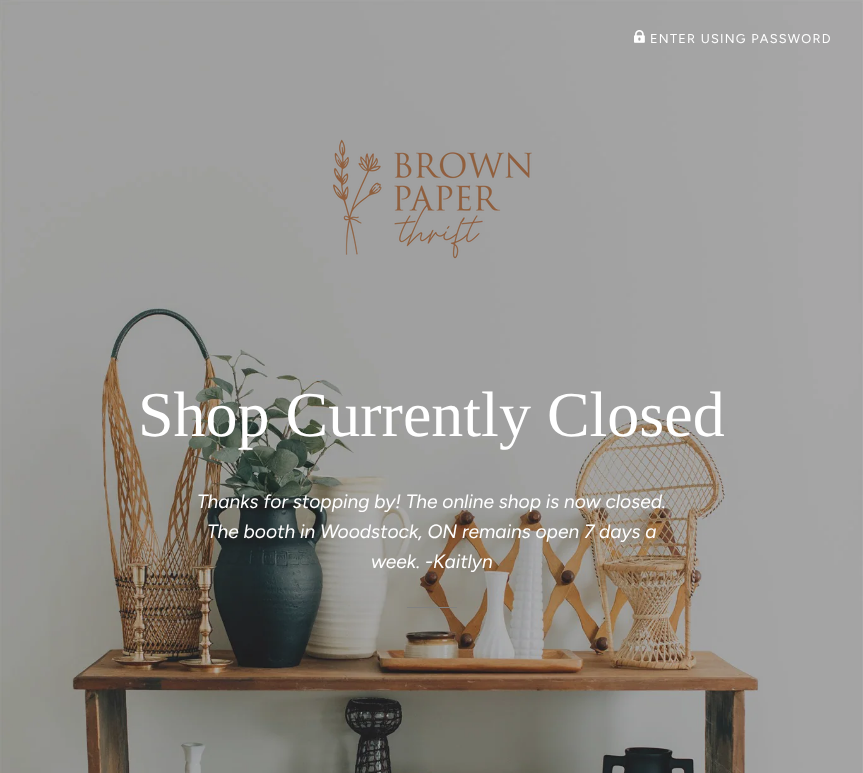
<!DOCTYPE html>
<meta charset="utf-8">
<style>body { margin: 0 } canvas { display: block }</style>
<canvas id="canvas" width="863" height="773"></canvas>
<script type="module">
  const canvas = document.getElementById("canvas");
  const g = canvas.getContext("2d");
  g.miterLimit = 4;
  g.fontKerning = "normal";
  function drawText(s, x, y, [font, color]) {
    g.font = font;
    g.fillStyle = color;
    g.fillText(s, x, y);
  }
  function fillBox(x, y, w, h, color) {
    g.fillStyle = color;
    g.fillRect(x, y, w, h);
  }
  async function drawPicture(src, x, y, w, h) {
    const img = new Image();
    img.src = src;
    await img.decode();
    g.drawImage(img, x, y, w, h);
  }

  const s1 = ["12.75px Figtree", "#FFFFFF"];
  const s2 = ["64px Liberation Serif", "#FFFFFF"];
  const s3 = ["italic 19.2px Figtree", "#FFFFFF"];

  fillBox(0, 0, 863, 773, "#FFFFFF");
  await drawPicture("pic1.png", 0, 0, 863, 773);
  await drawPicture("pic2.png", 634, 30, 11, 13);
  g.letterSpacing = "1.25px";
  drawText("ENTER USING PASSWORD", 650, 43, s1);
  await drawPicture("pic3.png", 333, 139, 199, 120);
  g.letterSpacing = "0px";
  drawText("Shop Currently Closed", 138, 436, s2);
  drawText("Thanks for stopping by! The online shop is now closed.", 197, 508, s3);
  drawText("The booth in Woodstock, ON remains open 7 days a", 207, 538, s3);
  drawText("week. -Kaitlyn", 371, 568, s3);
  fillBox(407, 607, 50, 1, "#808080");
</script>
